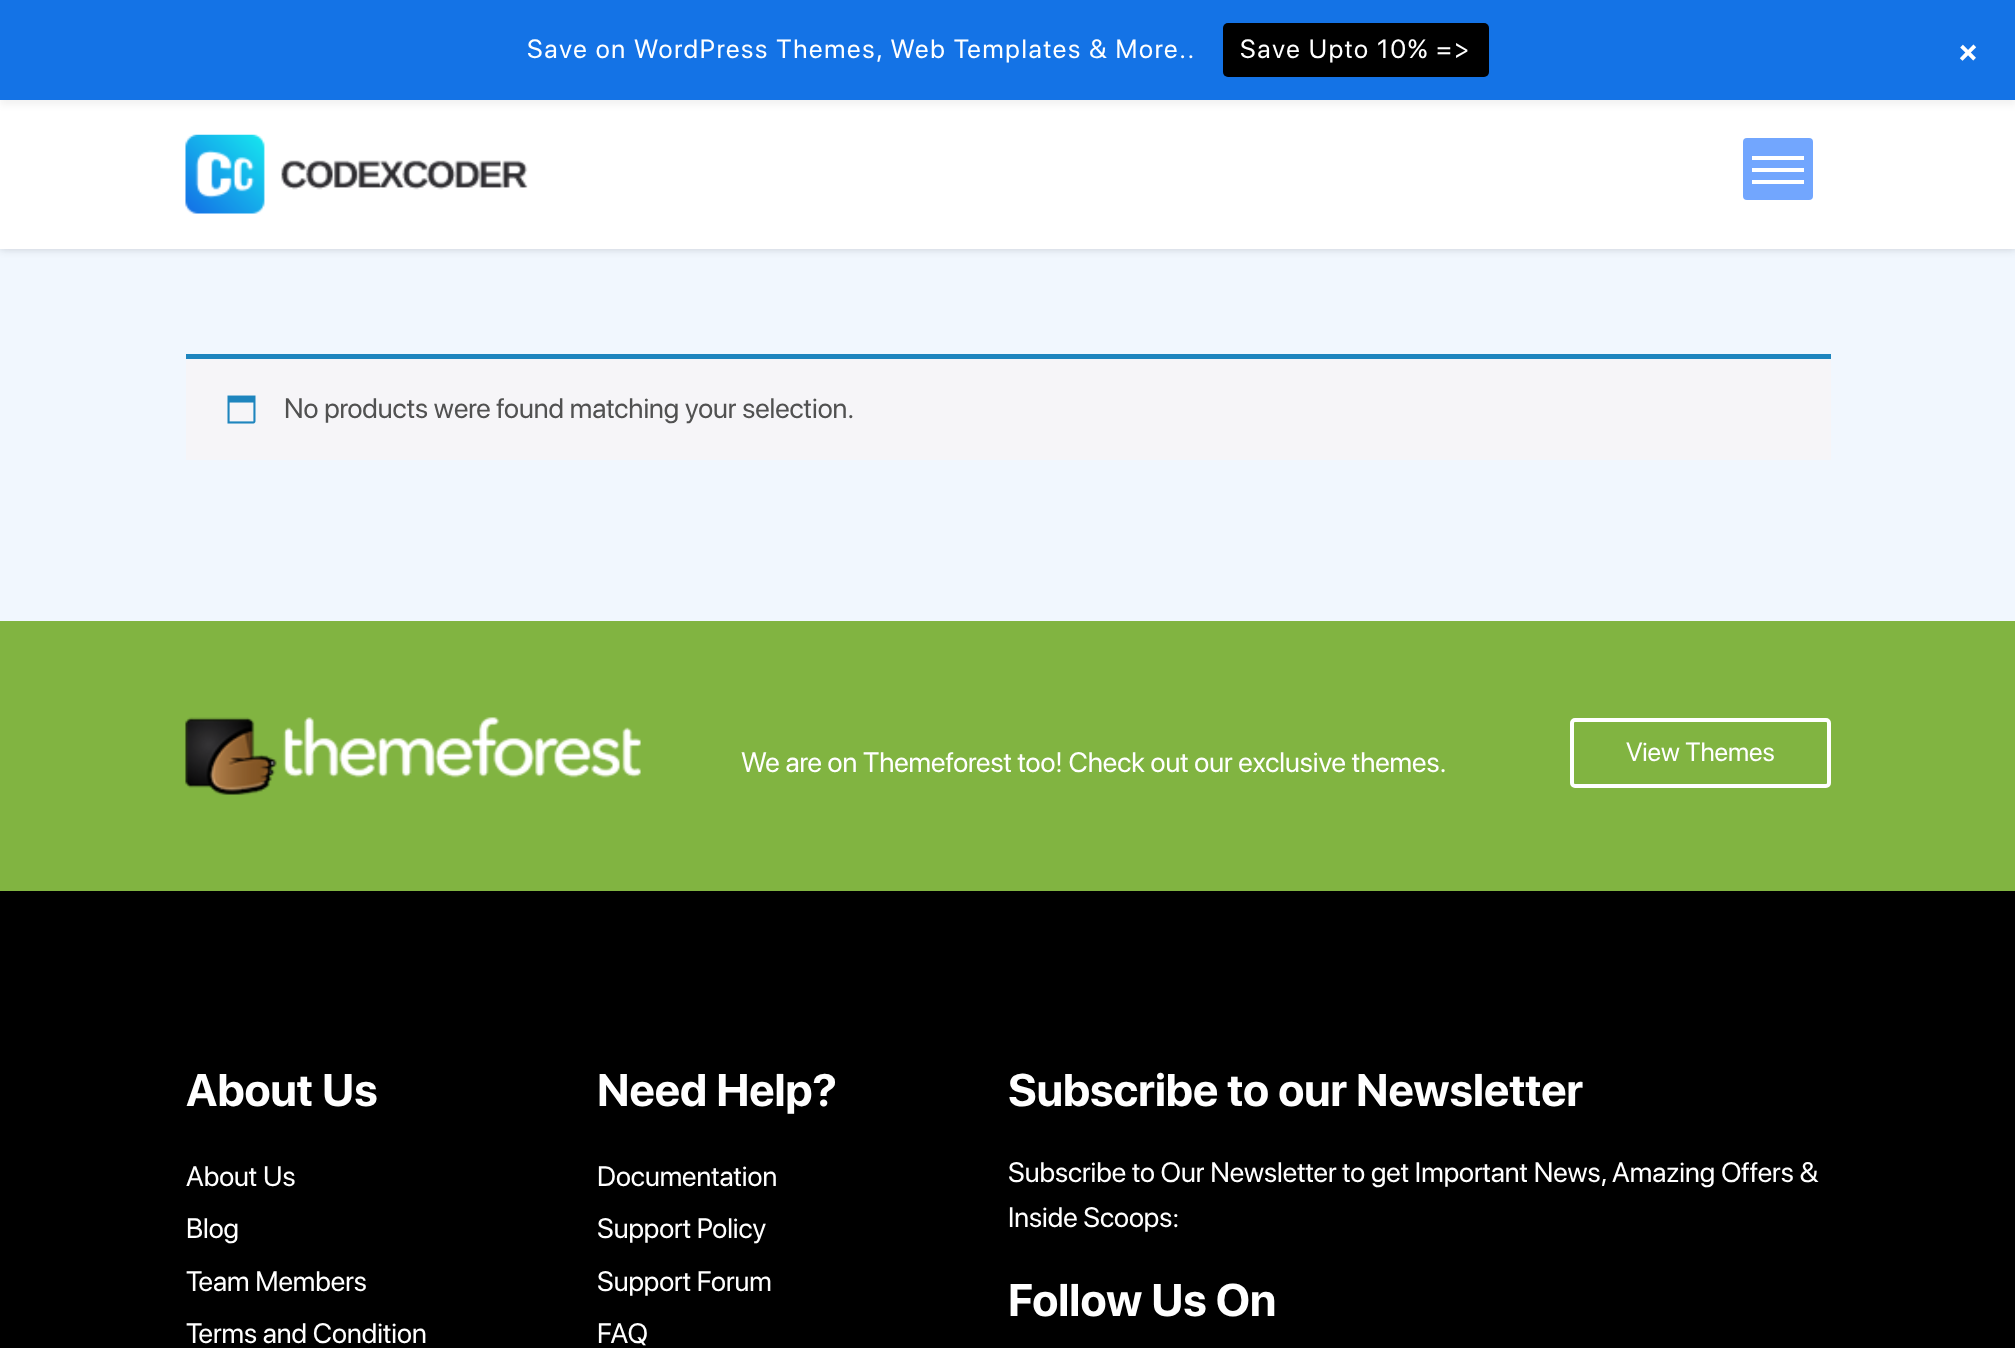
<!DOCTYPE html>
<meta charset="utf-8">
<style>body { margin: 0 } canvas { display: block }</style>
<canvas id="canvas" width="2015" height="1348"></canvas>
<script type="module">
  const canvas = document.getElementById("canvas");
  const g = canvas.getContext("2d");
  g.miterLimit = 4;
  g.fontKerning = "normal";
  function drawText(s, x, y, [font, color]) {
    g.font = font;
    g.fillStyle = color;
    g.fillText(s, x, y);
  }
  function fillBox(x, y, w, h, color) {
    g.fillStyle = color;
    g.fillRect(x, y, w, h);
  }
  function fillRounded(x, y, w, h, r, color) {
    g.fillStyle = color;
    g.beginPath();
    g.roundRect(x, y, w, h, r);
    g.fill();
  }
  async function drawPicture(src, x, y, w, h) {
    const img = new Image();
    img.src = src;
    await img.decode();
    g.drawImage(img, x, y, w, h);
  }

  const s1 = ["26.25px SF Pro Display", "#FFFFFF"];
  const s2 = ["28px SF Pro Display", "#515151"];
  const s3 = ["28px SF Pro Display", "#FFFFFF"];
  const s4 = ["bold 45.5px SF Pro Display", "#FFFFFF"];

  fillBox(0, 0, 2015, 1348, "#F1F7FE");
  g.fillStyle = "rgba(30, 33, 38, 0.2)";
  g.filter = "blur(4.5px)";
  g.beginPath();
  g.rect(0, 100, 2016, 149);
  g.fill();
  g.filter = "none";
  fillBox(0, 100, 2015, 149, "#FFFFFF");
  g.fillStyle = "rgba(0, 0, 0, 0.05)";
  g.filter = "blur(3.5px)";
  g.beginPath();
  g.rect(0, 5, 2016, 100);
  g.fill();
  g.filter = "none";
  fillBox(0, 0, 2015, 100, "#1473E6");
  g.letterSpacing = "1.75px";
  drawText("Save on WordPress Themes, Web Templates & More..", 527, 58, s1);
  fillRounded(1223, 23, 266, 54, 5, "#000000");
  drawText("Save Upto 10% =>", 1240, 58, s1);
  g.font = "bold 35px 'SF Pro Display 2'";
  g.save();
  g.translate(1953, 52);
  g.rotate(45 * Math.PI / 180);
  g.fillText("+", 0, 0);
  g.restore();
  await drawPicture("pic1.png", 185, 134, 343, 80);
  fillRounded(1743, 138, 70, 62, 4, "#72A6FE");
  fillBox(1752, 156, 52, 4, "#FFFFFF");
  fillBox(1752, 168, 52, 4, "#FFFFFF");
  fillBox(1752, 180, 52, 4, "#FFFFFF");
  fillBox(186, 359, 1645, 101, "#F6F5F8");
  fillBox(186, 354, 1645, 5, "#1E85BE");
  await drawPicture("pic2.png", 227, 395, 29, 29);
  g.letterSpacing = "0px";
  drawText("No products were found matching your selection.", 284, 418, s2);
  fillBox(0, 621, 2015, 270, "#81B441");
  await drawPicture("pic3.png", 185, 717, 456, 78);
  drawText("We are on Themeforest too! Check out our exclusive themes.", 741, 772, s3);
  g.beginPath();
  g.roundRect(1572, 720, 257, 66, 3);
  g.strokeStyle = "#FFFFFF";
  g.lineWidth = 4;
  g.stroke();
  drawText("View Themes", 1626, 761, s1);
  fillBox(0, 891, 2015, 457, "#000000");
  drawText("About Us", 186, 1106, s4);
  drawText("About Us", 186, 1186, s3);
  drawText("Blog", 186, 1238, s3);
  drawText("Team Members", 186, 1291, s3);
  drawText("Terms and Condition", 186, 1343, s3);
  drawText("Need Help?", 597, 1106, s4);
  drawText("Documentation", 597, 1186, s3);
  drawText("Support Policy", 597, 1238, s3);
  drawText("Support Forum", 597, 1291, s3);
  drawText("FAQ", 597, 1343, s3);
  drawText("Subscribe to our Newsletter", 1008, 1106, s4);
  drawText("Subscribe to Our Newsletter to get Important News, Amazing Offers &", 1008, 1182, s3);
  drawText("Inside Scoops:", 1008, 1227, s3);
  drawText("Follow Us On", 1008, 1316, s4);
</script>
